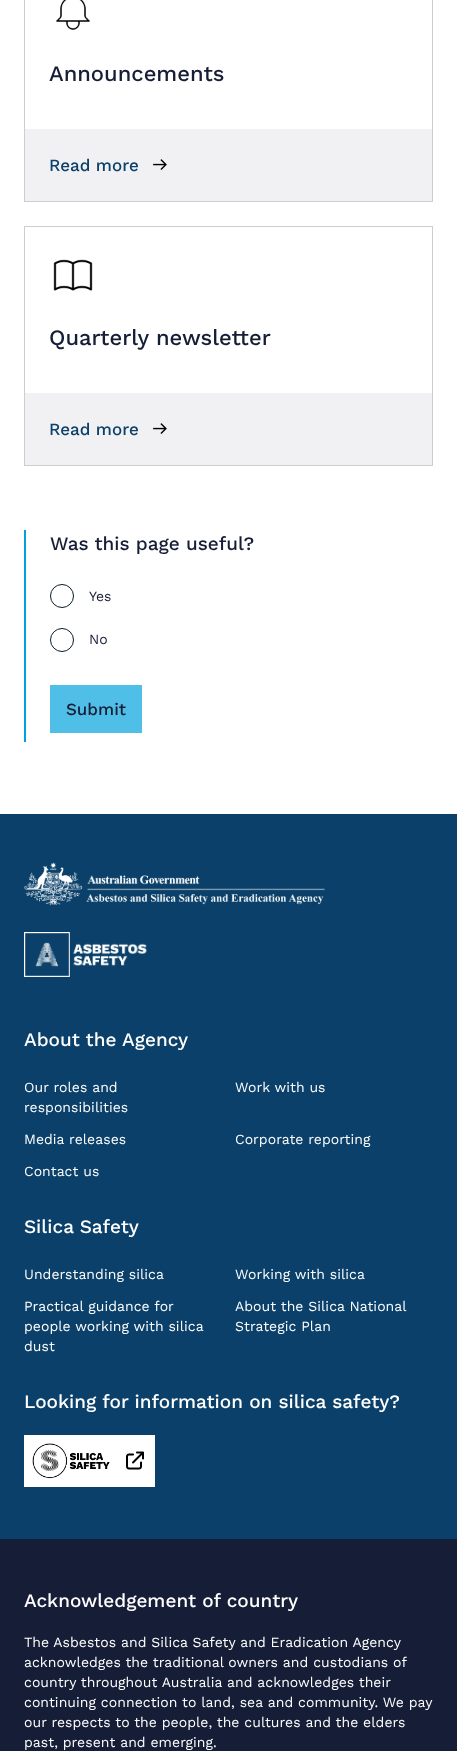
<!DOCTYPE html>
<meta charset="utf-8">
<style>body { margin: 0 } canvas { display: block }</style>
<canvas id="canvas" width="457" height="1751"></canvas>
<script type="module">
  const canvas = document.getElementById("canvas");
  const g = canvas.getContext("2d");
  g.miterLimit = 4;
  g.fontKerning = "normal";
  function drawText(s, x, y, [font, color]) {
    g.font = font;
    g.fillStyle = color;
    g.fillText(s, x, y);
  }
  function fillBox(x, y, w, h, color) {
    g.fillStyle = color;
    g.fillRect(x, y, w, h);
  }
  async function drawPicture(src, x, y, w, h) {
    const img = new Image();
    img.src = src;
    await img.decode();
    g.drawImage(img, x, y, w, h);
  }

  const s1 = ["500 22px Work Sans", "#161D36"];
  const s2 = ["500 17px Work Sans", "#0A4069"];
  const s3 = ["500 19px Work Sans", "#161D36"];
  const s4 = ["14px Work Sans", "#161D36"];
  const s5 = ["500 17px Work Sans", "#161D36"];
  const s6 = ["500 19px Work Sans", "#FFFFFF"];
  const s7 = ["14px Work Sans", "#FFFFFF"];

  fillBox(0, 0, 457, 1751, "#FFFFFF");
  g.strokeStyle = "#CCCCD3";
  g.strokeRect(24.5, -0.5, 408, 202);
  await drawPicture("pic1.png", 56, 0, 34, 30);
  drawText("Announcements", 49, 81, s1);
  fillBox(25, 129, 407, 72, "#F1F1F3");
  drawText("Read more", 49, 171, s2);
  await drawPicture("pic2.png", 153, 159, 14, 11);
  g.strokeRect(24.5, 226.5, 408, 239);
  await drawPicture("pic3.png", 53, 259, 40, 32);
  drawText("Quarterly newsletter", 49, 345, s1);
  fillBox(25, 393, 407, 72, "#F1F1F3");
  drawText("Read more", 49, 435, s2);
  await drawPicture("pic2.png", 153, 423, 14, 11);
  fillBox(24, 530, 2, 212, "#00A0DC");
  drawText("Was this page useful?", 50, 550, s3);
  g.beginPath();
  g.arc(62, 596, 11.5, 0, Math.PI * 2);
  g.strokeStyle = "#071C2B";
  g.stroke();
  drawText("Yes", 89, 601, s4);
  g.beginPath();
  g.arc(62, 640, 11.5, 0, Math.PI * 2);
  g.stroke();
  drawText("No", 89, 644, s4);
  fillBox(50, 685, 92, 48, "#4FBFE7");
  drawText("Submit", 66, 715, s5);
  fillBox(0, 814, 457, 725, "#0A4069");
  await drawPicture("pic4.png", 24, 862, 301, 44);
  await drawPicture("pic5.png", 24, 932, 123, 45);
  drawText("About the Agency", 24, 1046, s6);
  g.letterSpacing = "0.05px";
  drawText("Our roles and", 24, 1092, s7);
  drawText("responsibilities", 24, 1112, s7);
  drawText("Work with us", 235, 1092, s7);
  drawText("Media releases", 24, 1144, s7);
  drawText("Corporate reporting", 235, 1144, s7);
  drawText("Contact us", 24, 1176, s7);
  g.letterSpacing = "0px";
  drawText("Silica Safety", 24, 1233, s6);
  g.letterSpacing = "0.05px";
  drawText("Understanding silica", 24, 1279, s7);
  drawText("Working with silica", 235, 1279, s7);
  drawText("Practical guidance for", 24, 1311, s7);
  drawText("people working with silica", 24, 1331, s7);
  drawText("dust", 24, 1351, s7);
  drawText("About the Silica National", 235, 1311, s7);
  drawText("Strategic Plan", 235, 1331, s7);
  g.letterSpacing = "0px";
  drawText("Looking for information on silica safety?", 24, 1408, s6);
  fillBox(24, 1435, 131, 52, "#FFFFFF");
  await drawPicture("pic6.png", 32, 1443, 78, 36);
  await drawPicture("pic7.png", 126, 1451, 18, 19);
  fillBox(0, 1539, 457, 212, "#161D36");
  drawText("Acknowledgement of country", 24, 1607, s6);
  g.letterSpacing = "0.05px";
  drawText("The Asbestos and Silica Safety and Eradication Agency", 24, 1647, s7);
  drawText("acknowledges the traditional owners and custodians of", 24, 1667, s7);
  drawText("country throughout Australia and acknowledges their", 24, 1687, s7);
  drawText("continuing connection to land, sea and community. We pay", 24, 1707, s7);
  drawText("our respects to the people, the cultures and the elders", 24, 1727, s7);
  drawText("past, present and emerging.", 24, 1747, s7);
</script>
